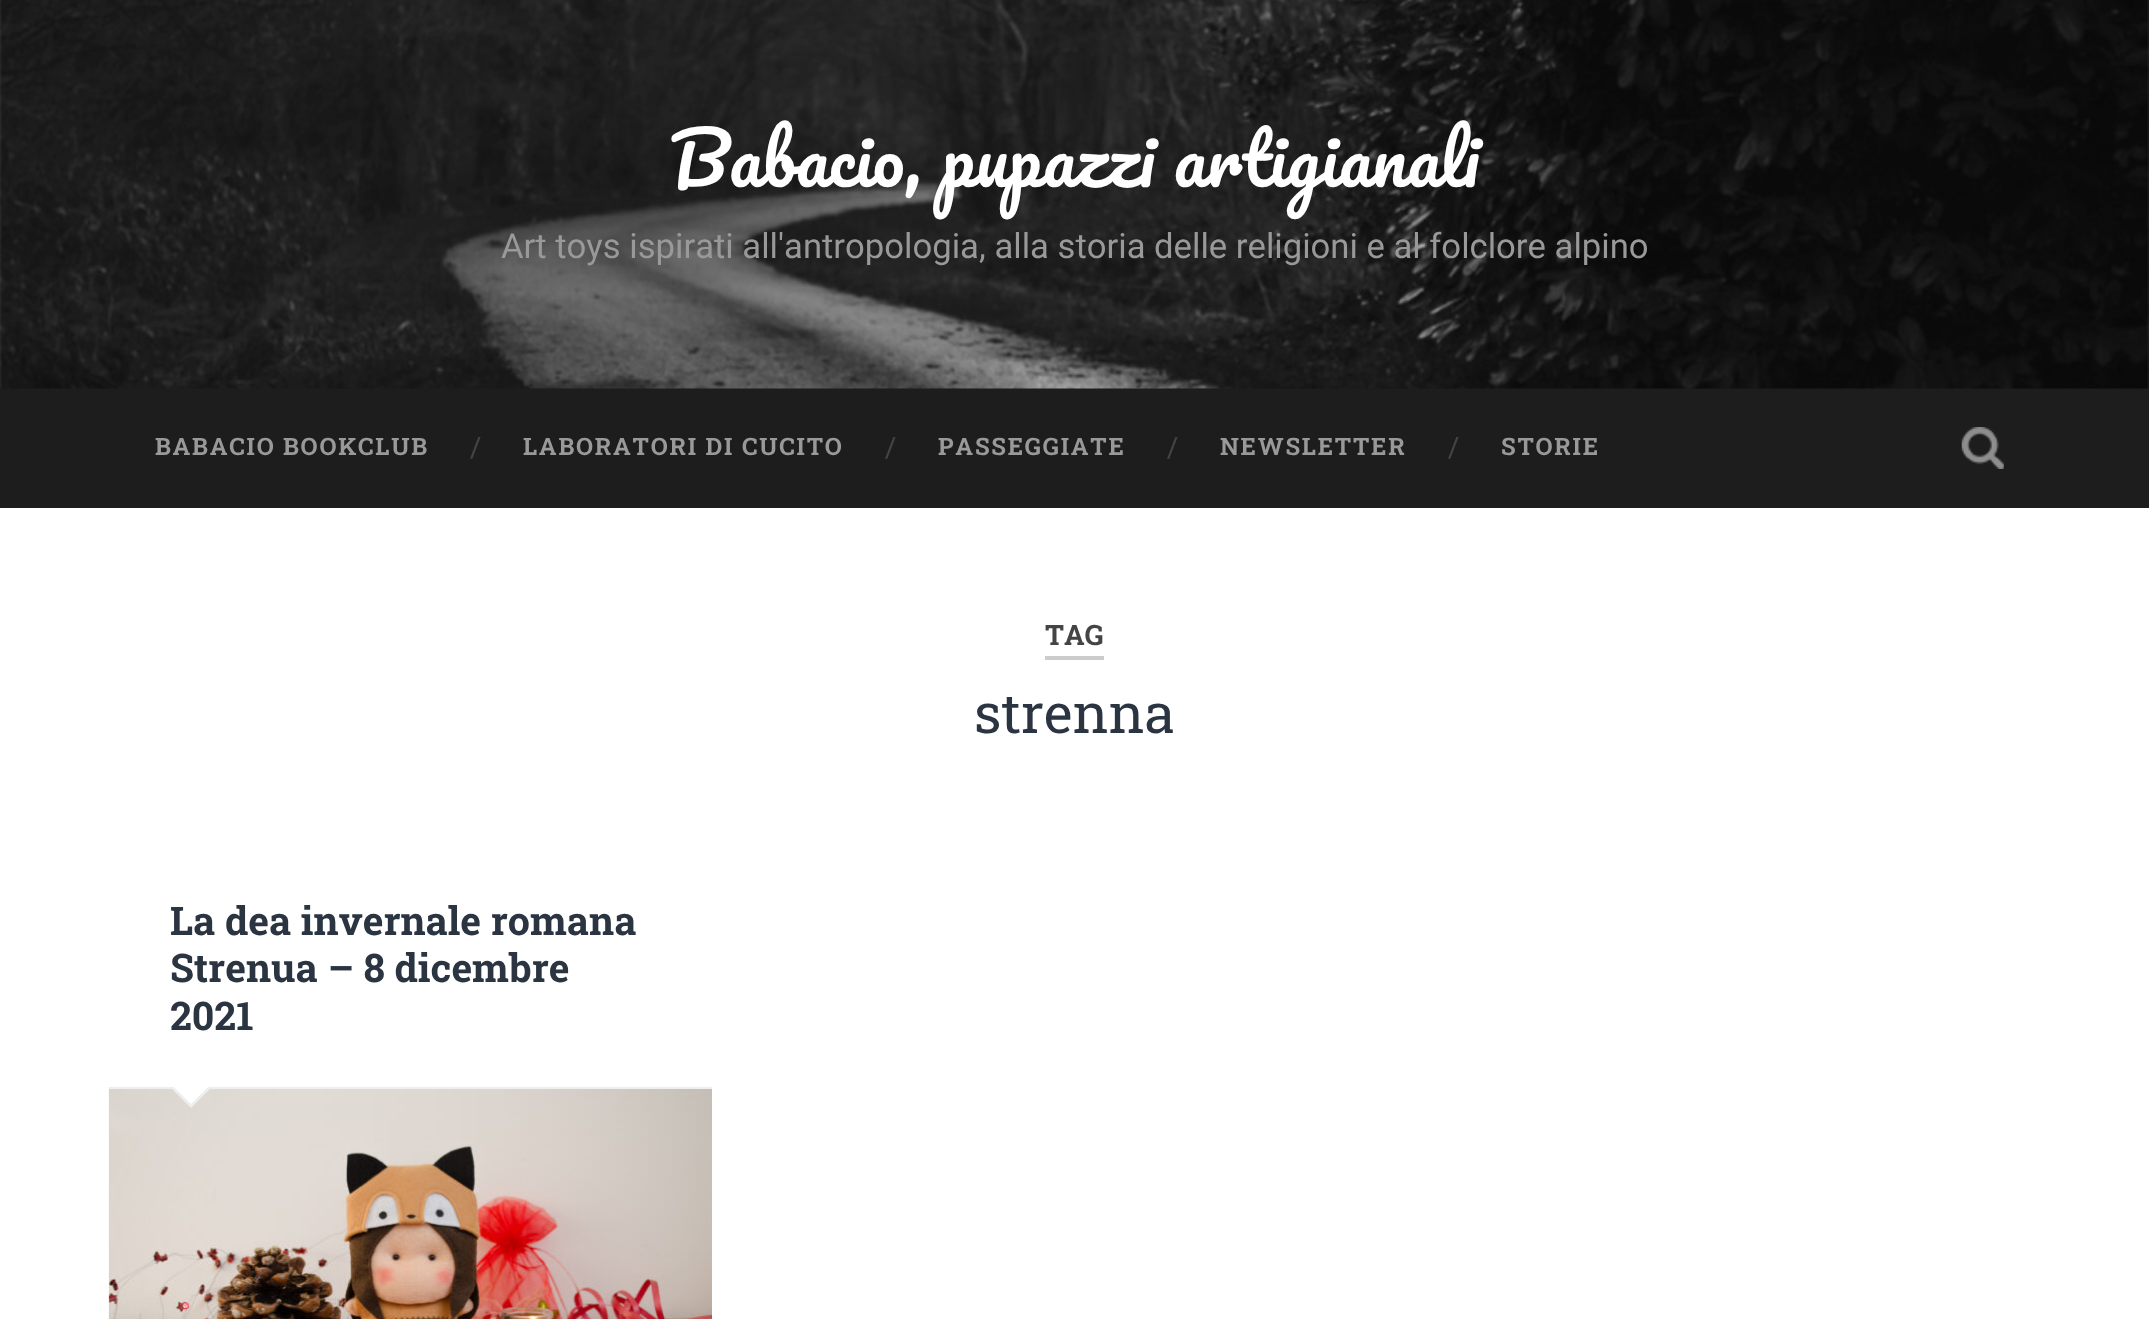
<!DOCTYPE html>
<meta charset="utf-8">
<style>body { margin: 0 } canvas { display: block }</style>
<canvas id="canvas" width="2149" height="1319"></canvas>
<script type="module">
  const canvas = document.getElementById("canvas");
  const g = canvas.getContext("2d");
  g.miterLimit = 4;
  g.fontKerning = "none";
  function drawText(s, x, y, [font, color]) {
    g.font = font;
    g.fillStyle = color;
    g.fillText(s, x, y);
  }
  function fillBox(x, y, w, h, color) {
    g.fillStyle = color;
    g.fillRect(x, y, w, h);
  }
  async function drawPicture(src, x, y, w, h) {
    const img = new Image();
    img.src = src;
    await img.decode();
    g.drawImage(img, x, y, w, h);
  }

  const s1 = ["70.9px Pacifico", "#FFFFFF"];
  const s2 = ["34.65px Roboto", "#999999"];
  const s3 = ["bold 24.1px Roboto Slab", "#999999"];
  const s4 = ["28px Roboto Slab", "#444444"];
  const s5 = ["bold 28px Roboto Slab", "#444444"];
  const s6 = ["55px Roboto Slab", "#2B3542"];
  const s7 = ["bold 39.4px Roboto Slab", "#2B3542"];

  fillBox(0, 0, 2149, 1319, "#FFFFFF");
  fillBox(0, 388, 2149, 120, "#1D1D1D");
  await drawPicture("pic1.png", 0, 0, 2149, 389);
  drawText("Babacio, pupazzi artigianali", 670, 187, s1);
  drawText("Art toys ispirati all'antropologia, alla storia delle religioni e al folclore alpino", 501, 258, s2);
  g.letterSpacing = "1.75px";
  drawText("BABACIO BOOKCLUB", 155, 455, s3);
  g.letterSpacing = "0px";
  drawText("/", 470, 457, s4);
  g.letterSpacing = "1.75px";
  drawText("LABORATORI DI CUCITO", 523, 455, s3);
  g.letterSpacing = "0px";
  drawText("/", 885, 457, s4);
  g.letterSpacing = "1.75px";
  drawText("PASSEGGIATE", 938, 455, s3);
  g.letterSpacing = "0px";
  drawText("/", 1167, 457, s4);
  g.letterSpacing = "1.75px";
  drawText("NEWSLETTER", 1220, 455, s3);
  g.letterSpacing = "0px";
  drawText("/", 1448, 457, s4);
  g.letterSpacing = "1.75px";
  drawText("STORIE", 1501, 455, s3);
  await drawPicture("pic2.png", 1961, 427, 43, 42);
  fillBox(1045, 656, 59, 4, "#CCCCCC");
  g.letterSpacing = "0px";
  drawText("TAG", 1045, 645, s5);
  drawText("strenna", 974, 733, s6);
  await drawPicture("pic3.png", 108, 1088, 604, 231);
  fillBox(109, 1087, 603, 2, "#EEEEEE");
  drawText("La dea invernale romana", 170, 935, s7);
  drawText("Strenua – 8 dicembre", 170, 982, s7);
  drawText("2021", 170, 1030, s7);
  g.fillStyle = "#EEEEEE";
  g.beginPath();
  g.moveTo(170, 1087);
  g.lineTo(212, 1087);
  g.lineTo(191, 1108);
  g.closePath();
  g.fill();
  g.fillStyle = "#FFFFFF";
  g.beginPath();
  g.moveTo(171.5, 1085);
  g.lineTo(210, 1085);
  g.lineTo(191, 1104);
  g.closePath();
  g.fill();
</script>
